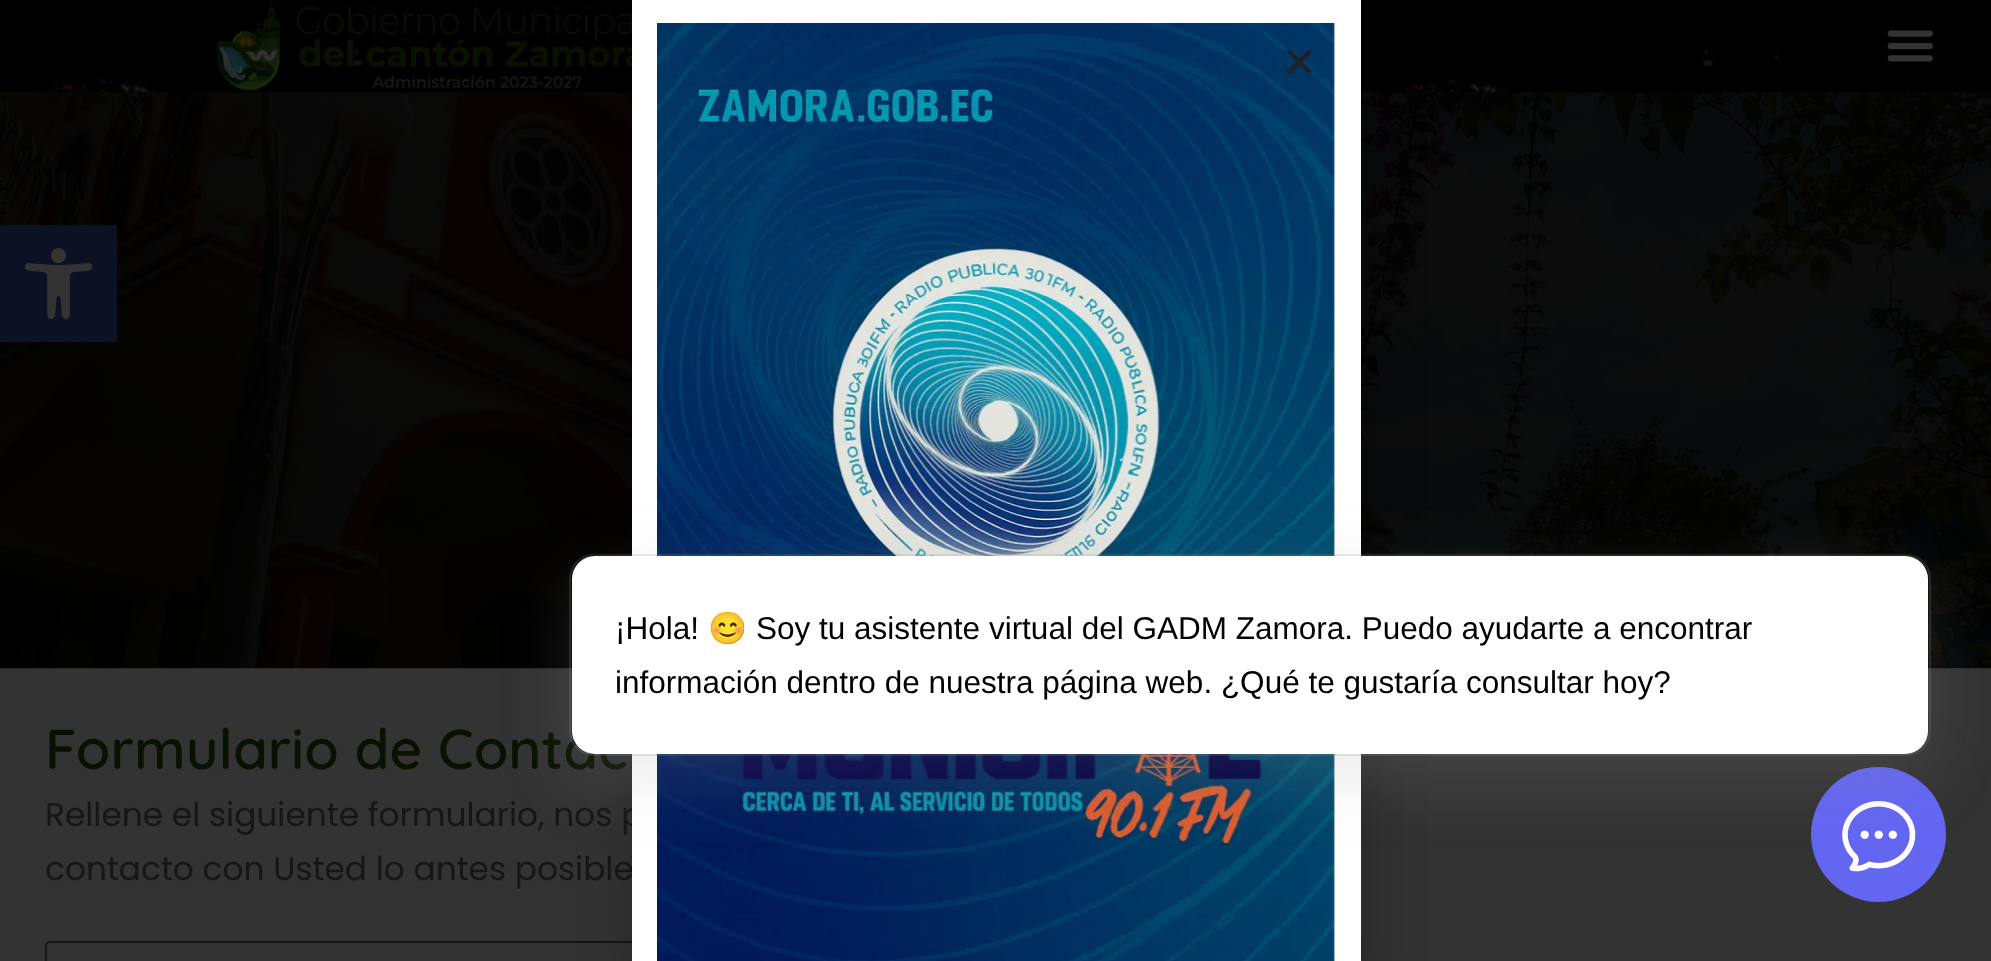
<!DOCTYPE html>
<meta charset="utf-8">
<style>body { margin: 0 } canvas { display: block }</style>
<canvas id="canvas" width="1991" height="961"></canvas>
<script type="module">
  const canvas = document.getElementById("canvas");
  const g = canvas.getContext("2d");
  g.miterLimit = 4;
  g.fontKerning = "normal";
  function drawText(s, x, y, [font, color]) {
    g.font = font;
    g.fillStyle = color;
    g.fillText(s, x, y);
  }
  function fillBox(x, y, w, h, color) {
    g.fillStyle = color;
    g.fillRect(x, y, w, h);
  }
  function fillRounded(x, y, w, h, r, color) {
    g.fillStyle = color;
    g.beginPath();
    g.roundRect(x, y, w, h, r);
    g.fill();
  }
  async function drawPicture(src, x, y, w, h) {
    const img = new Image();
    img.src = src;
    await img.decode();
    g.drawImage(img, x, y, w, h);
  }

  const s1 = ["32.8px Poppins", "#161616"];
  const s2 = ["600 56.25px Quicksand", "#091201"];
  const s3 = ["31.5px Liberation Sans", "#000000"];
  const s4 = ["31.5px Noto Color Emoji", "#000000"];

  fillBox(0, 0, 1991, 961, "#333333");
  await drawPicture("pic8.png", 0, 92, 1991, 577);
  fillBox(0, 225, 117, 117, "#0D1124");
  await drawPicture("pic1.png", 24, 248, 69, 71);
  await drawPicture("pic5.png", 0, 0, 1991, 93);
  await drawPicture("pic6.png", 217, 0, 415, 91);
  g.beginPath();
  g.roundRect(46, 942, 950, 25, 4);
  g.strokeStyle = "#151719";
  g.lineWidth = 2;
  g.stroke();
  g.fillStyle = "rgba(0, 0, 0, 0.2)";
  g.filter = "blur(26px)";
  g.beginPath();
  g.rect(630, 11, 743, 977);
  g.fill();
  g.filter = "none";
  drawText("Rellene el siguiente formulario, nos p", 45, 826, s1);
  drawText("contacto con Usted lo antes posible", 45, 880, s1);
  fillBox(632, 0, 729, 961, "#FFFFFF");
  await drawPicture("pic2.png", 657, 23, 678, 938);
  await drawPicture("pic3.png", 1287, 50, 25, 24);
  drawText("Formulario de Contac", 45, 769, s2);
  g.beginPath();
  g.roundRect(570, 555, 1360, 200, 24);
  g.strokeStyle = "rgba(150, 150, 150, 0.2)";
  g.stroke();
  g.fillStyle = "#6366F1";
  g.beginPath();
  g.arc(1878.5, 834.5, 67.5, 0, Math.PI * 2);
  g.fill();
  await drawPicture("pic4.png", 1842, 801, 74, 71);
  g.fillStyle = "rgba(150, 150, 150, 0.2)";
  g.filter = "blur(34px)";
  g.beginPath();
  g.roundRect(572, 578, 1356, 198, 23);
  g.fill();
  g.filter = "none";
  fillRounded(572, 556, 1356, 198, 23, "#FFFFFF");
  drawText("¡Hola!", 615, 639, s3);
  drawText("😊", 708, 639, s4);
  drawText("Soy tu asistente virtual del GADM Zamora. Puedo ayudarte a encontrar", 756, 639, s3);
  drawText("información dentro de nuestra página web. ¿Qué te gustaría consultar hoy?", 615, 693, s3);
  await drawPicture("pic7.png", 1887, 30, 46, 32);
</script>
